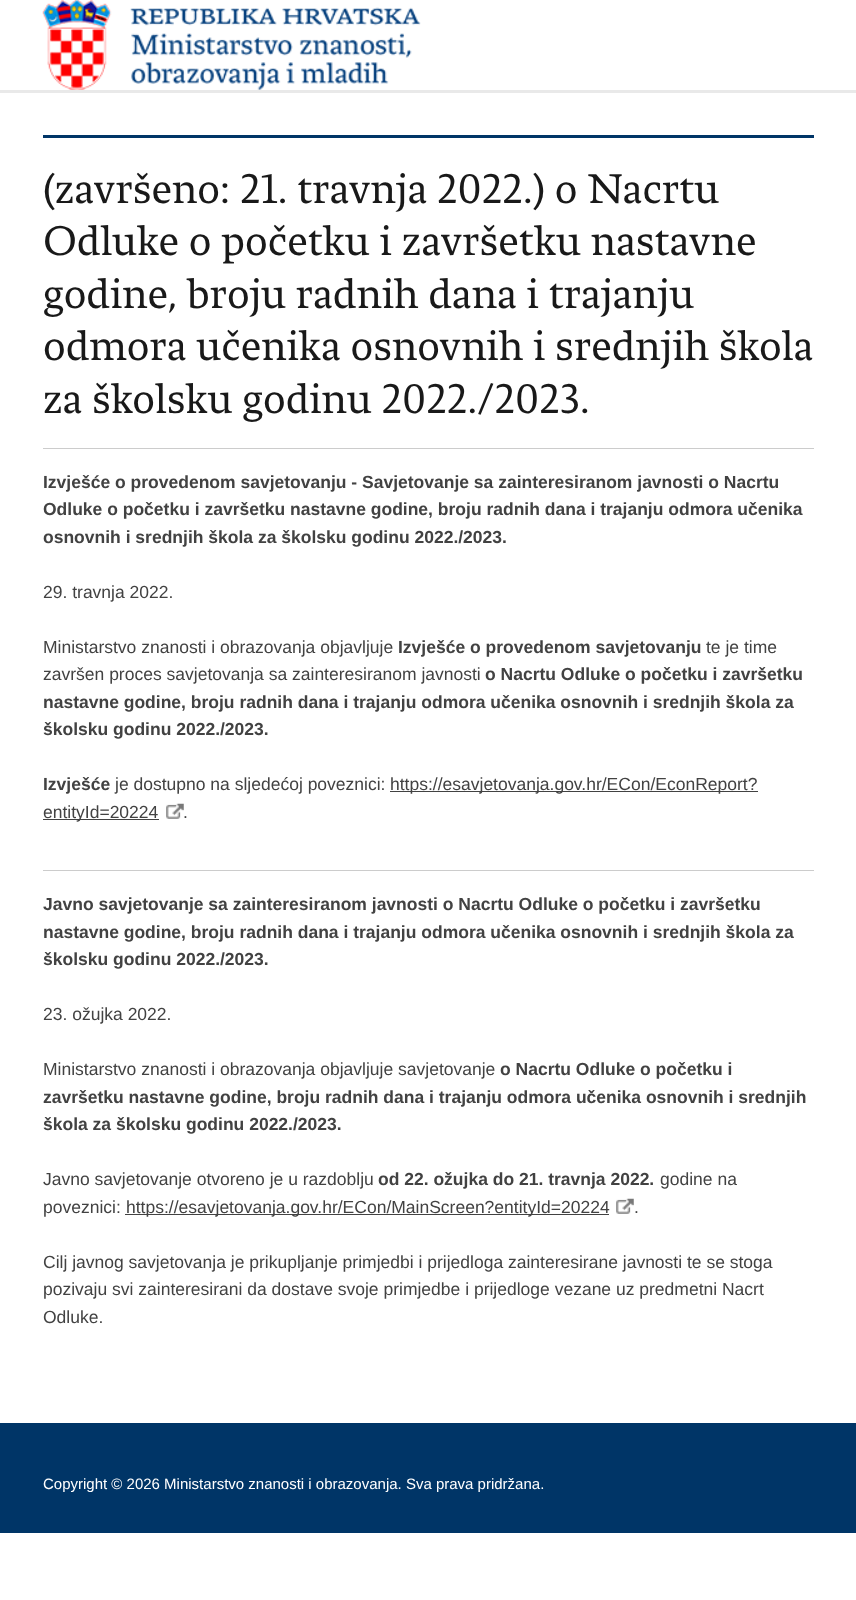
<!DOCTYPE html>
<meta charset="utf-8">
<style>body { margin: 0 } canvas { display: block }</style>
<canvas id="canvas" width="856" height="1600"></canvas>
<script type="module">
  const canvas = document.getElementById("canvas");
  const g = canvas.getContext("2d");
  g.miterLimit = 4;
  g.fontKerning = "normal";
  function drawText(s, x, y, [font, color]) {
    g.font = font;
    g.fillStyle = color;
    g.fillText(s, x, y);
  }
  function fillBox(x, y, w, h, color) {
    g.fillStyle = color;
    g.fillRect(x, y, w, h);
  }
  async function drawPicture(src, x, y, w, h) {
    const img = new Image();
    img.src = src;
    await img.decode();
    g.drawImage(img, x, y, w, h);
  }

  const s1 = ["43.75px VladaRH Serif", "#191919"];
  const s2 = ["bold 17.5px Liberation Sans", "#424242"];
  const s3 = ["17.5px Liberation Sans", "#424242"];
  const s4 = ["15px Liberation Sans", "#FFFFFF"];

  fillBox(0, 0, 856, 1600, "#FFFFFF");
  fillBox(0, 90, 856, 3, "#E9E9E9");
  await drawPicture("pic1.png", 42, 0, 379, 90);
  fillBox(43, 135, 771, 3, "#003567");
  drawText("(završeno: 21. travnja 2022.) o Nacrtu", 43, 203, s1);
  drawText("Odluke o početku i završetku nastavne", 43, 255, s1);
  drawText("godine, broju radnih dana i trajanju", 43, 308, s1);
  drawText("odmora učenika osnovnih i srednjih škola", 43, 360, s1);
  drawText("za školsku godinu 2022./2023.", 43, 413, s1);
  fillBox(43, 448, 771, 1, "#CCCCCC");
  drawText("Izvješće o provedenom savjetovanju - Savjetovanje sa zainteresiranom javnosti o Nacrtu", 43, 488, s2);
  drawText("Odluke o početku i završetku nastavne godine, broju radnih dana i trajanju odmora učenika", 43, 515, s2);
  drawText("osnovnih i srednjih škola za školsku godinu 2022./2023.", 43, 543, s2);
  drawText("29. travnja 2022.", 43, 598, s3);
  drawText("Ministarstvo znanosti i obrazovanja objavljuje", 43, 653, s3);
  drawText("Izvješće o provedenom savjetovanju", 398, 653, s2);
  drawText("te je time", 706, 653, s3);
  drawText("završen proces savjetovanja sa zainteresiranom javnosti", 43, 680, s3);
  drawText("o Nacrtu Odluke o početku i završetku", 485, 680, s2);
  drawText("nastavne godine, broju radnih dana i trajanju odmora učenika osnovnih i srednjih škola za", 43, 708, s2);
  drawText("školsku godinu 2022./2023.", 43, 735, s2);
  drawText("Izvješće", 43, 790, s2);
  drawText("je dostupno na sljedećoj poveznici:", 115, 790, s3);
  fillBox(390, 791, 368, 1, "#424242");
  drawText("https://esavjetovanja.gov.hr/ECon/EconReport?", 390, 790, s3);
  fillBox(43, 819, 116, 1, "#424242");
  drawText("entityId=20224", 43, 818, s3);
  await drawPicture("pic2.png", 166, 803, 18, 16);
  drawText(".", 183, 818, s3);
  fillBox(43, 870, 771, 1, "#CCCCCC");
  drawText("Javno savjetovanje sa zainteresiranom javnosti o Nacrtu Odluke o početku i završetku", 43, 910, s2);
  drawText("nastavne godine, broju radnih dana i trajanju odmora učenika osnovnih i srednjih škola za", 43, 938, s2);
  drawText("školsku godinu 2022./2023.", 43, 965, s2);
  drawText("23. ožujka 2022.", 43, 1020, s3);
  drawText("Ministarstvo znanosti i obrazovanja objavljuje savjetovanje", 43, 1075, s3);
  drawText("o Nacrtu Odluke o početku i", 500, 1075, s2);
  drawText("završetku nastavne godine, broju radnih dana i trajanju odmora učenika osnovnih i srednjih", 43, 1103, s2);
  drawText("škola za školsku godinu 2022./2023.", 43, 1130, s2);
  drawText("Javno savjetovanje otvoreno je u razdoblju", 43, 1185, s3);
  drawText("od 22. ožujka do 21. travnja 2022.", 378, 1185, s2);
  drawText("godine na", 660, 1185, s3);
  drawText("poveznici:", 43, 1213, s3);
  fillBox(125, 1214, 484, 1, "#424242");
  drawText("https://esavjetovanja.gov.hr/ECon/MainScreen?entityId=20224", 126, 1213, s3);
  await drawPicture("pic2.png", 616, 1198, 18, 16);
  drawText(".", 634, 1213, s3);
  drawText("Cilj javnog savjetovanja je prikupljanje primjedbi i prijedloga zainteresirane javnosti te se stoga", 43, 1268, s3);
  drawText("pozivaju svi zainteresirani da dostave svoje primjedbe i prijedloge vezane uz predmetni Nacrt", 43, 1295, s3);
  drawText("Odluke.", 43, 1323, s3);
  fillBox(0, 1423, 856, 110, "#003567");
  drawText("Copyright © 2026 Ministarstvo znanosti i obrazovanja. Sva prava pridržana.", 43, 1489, s4);
</script>
